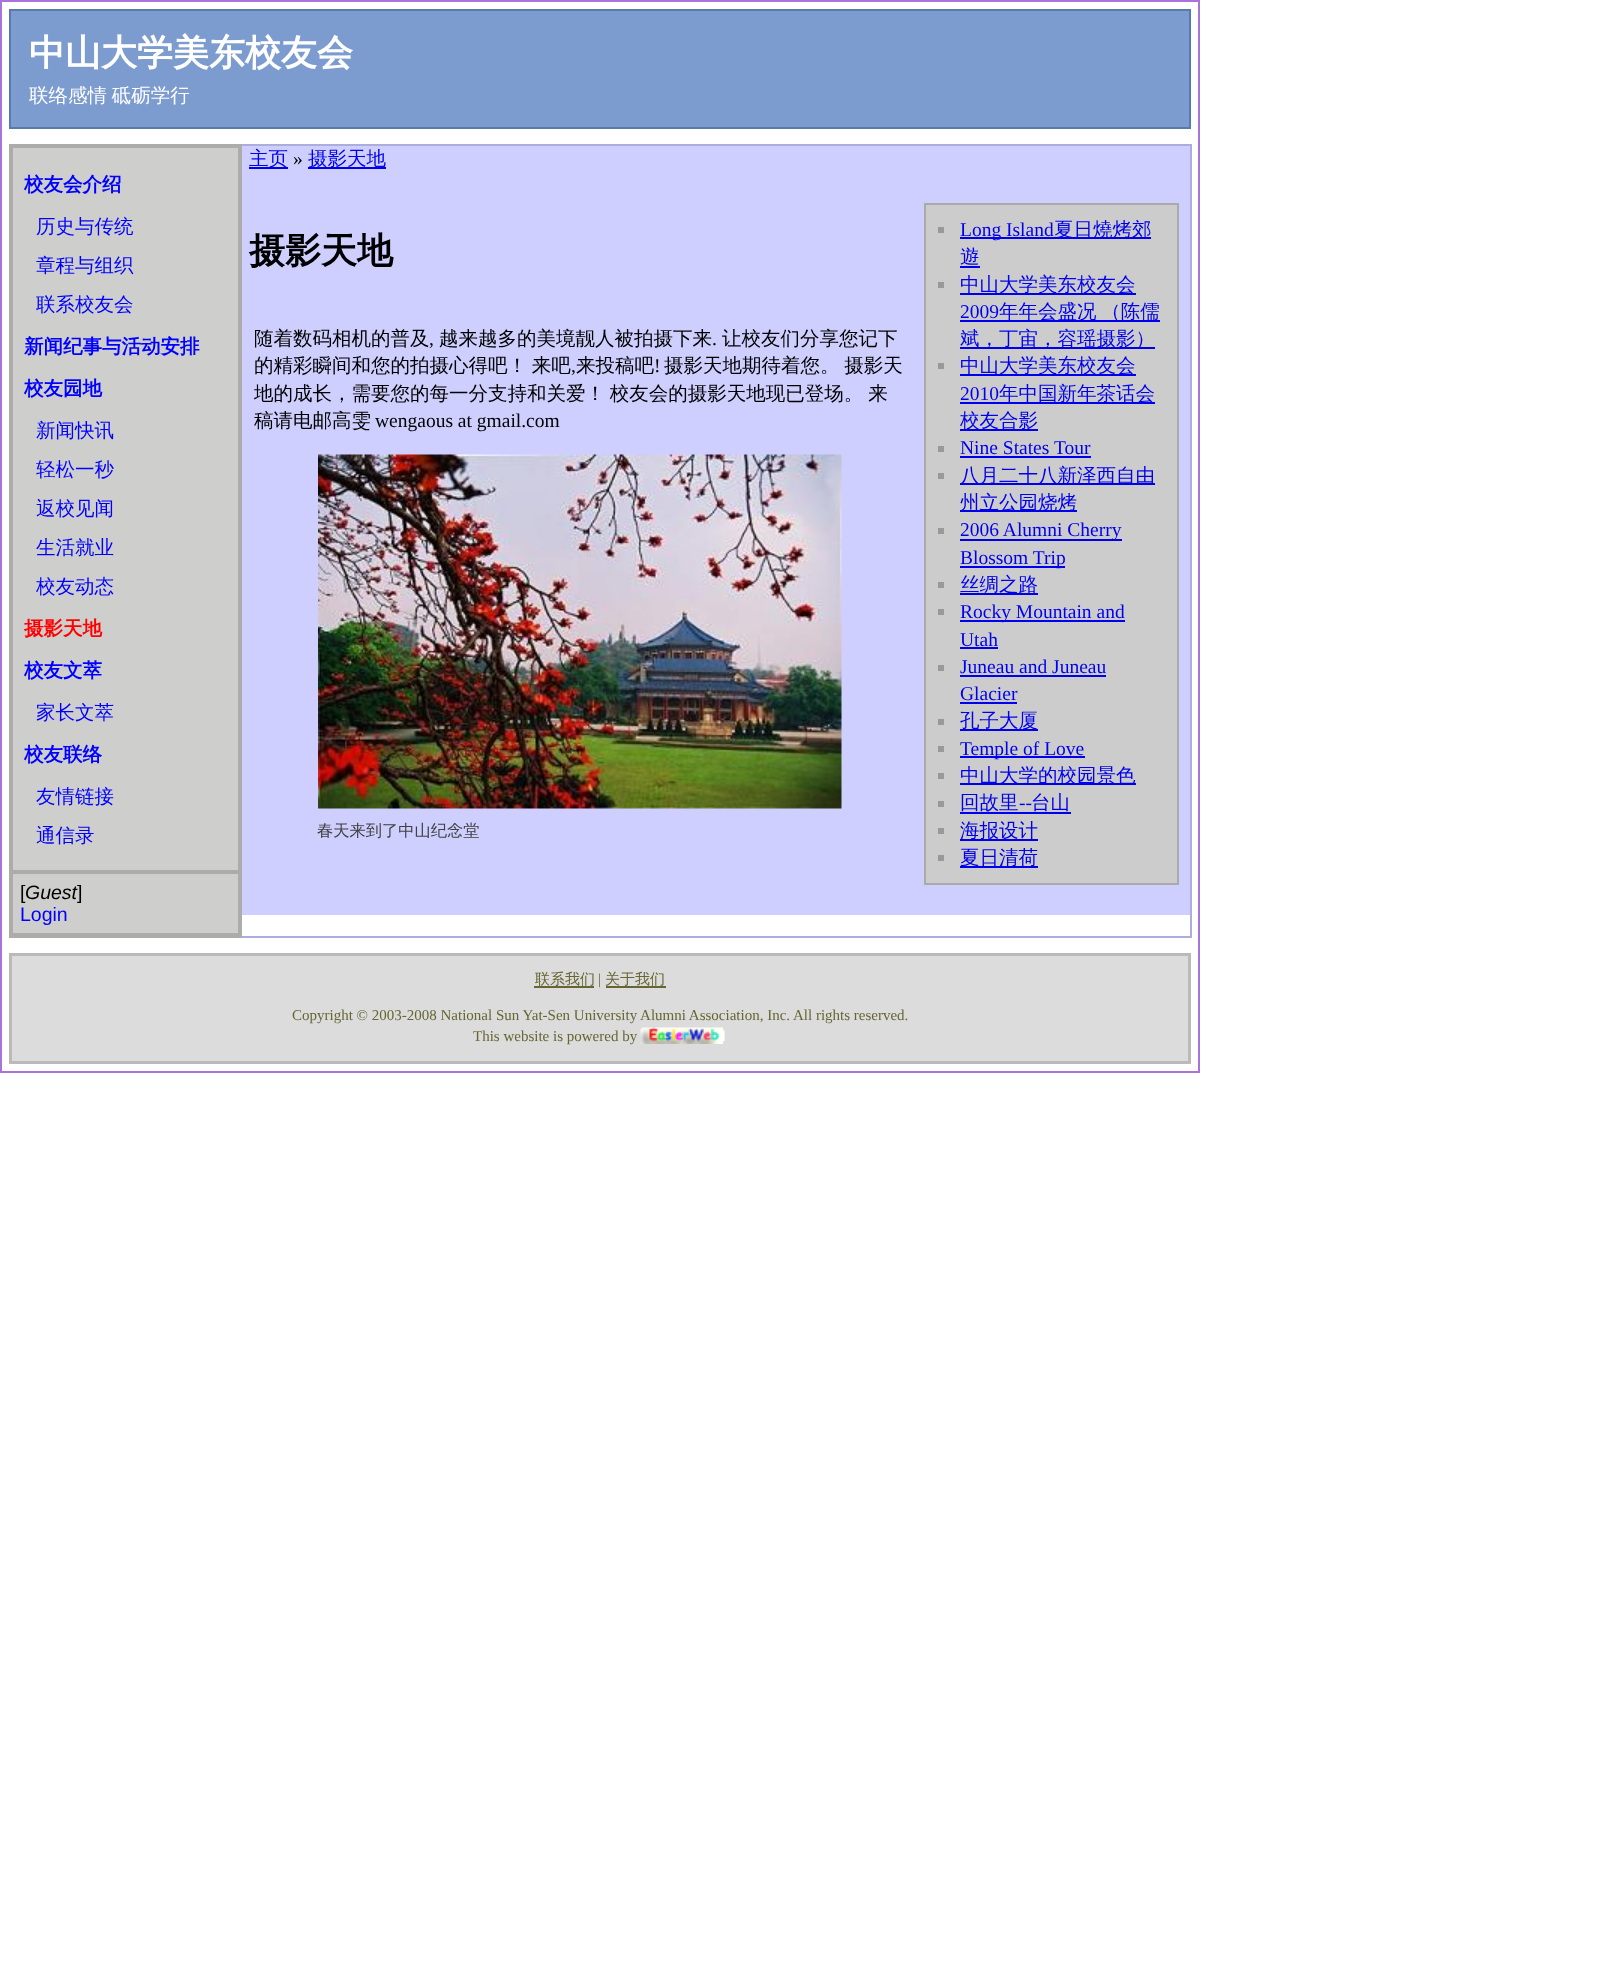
<!DOCTYPE html>
<meta charset="utf-8">
<style>body { margin: 0 } canvas { display: block }</style>
<canvas id="canvas" width="1619" height="1975"></canvas>
<script type="module">
  const canvas = document.getElementById("canvas");
  const g = canvas.getContext("2d");
  g.miterLimit = 4;
  g.fontKerning = "normal";
  function drawText(s, x, y, [font, color]) {
    g.font = font;
    g.fillStyle = color;
    g.fillText(s, x, y);
  }
  function fillBox(x, y, w, h, color) {
    g.fillStyle = color;
    g.fillRect(x, y, w, h);
  }
  async function drawPicture(src, x, y, w, h) {
    const img = new Image();
    img.src = src;
    await img.decode();
    g.drawImage(img, x, y, w, h);
  }

  const s1 = ["bold 36px WenQuanYi Zen Hei", "#FFFFFF"];
  const s2 = ["500 19.5px WenQuanYi Zen Hei", "#FFFFFF"];
  const s3 = ["bold 19.5px WenQuanYi Zen Hei", "#0000FF"];
  const s4 = ["500 19.5px WenQuanYi Zen Hei", "#0000FF"];
  const s5 = ["bold 19.5px WenQuanYi Zen Hei", "#FF0000"];
  const s6 = ["19.5px Liberation Sans", "#000000"];
  const s7 = ["italic 19.5px Liberation Sans", "#000000"];
  const s8 = ["19.5px Liberation Sans", "#0000FF"];
  const s9 = ["500 19.5px WenQuanYi Zen Hei", "#0000EE"];
  const s10 = ["19.5px Liberation Serif", "#000000"];
  const s11 = ["bold 36px WenQuanYi Zen Hei", "#000000"];
  const s12 = ["500 19.5px WenQuanYi Zen Hei", "#000000"];
  const s13 = ["500 16.25px WenQuanYi Zen Hei", "#404040"];
  const s14 = ["19.5px Liberation Serif", "#0000EE"];
  const s15 = ["500 15px WenQuanYi Zen Hei", "#666633"];
  const s16 = ["15px Liberation Serif", "#666633"];

  fillBox(0, 0, 1619, 1975, "#FFFFFF");
  g.strokeStyle = "#A873DB";
  g.lineWidth = 2;
  g.strokeRect(1, 1, 1198, 1071);
  g.fillStyle = "#7C9BCF";
  g.beginPath();
  g.rect(10, 10, 1180, 118);
  g.fill();
  g.strokeStyle = "#5A79AD";
  g.stroke();
  drawText("中山大学美东校友会", 29, 65, s1);
  g.wordSpacing = "-1px";
  drawText("联络感情 砥砺学行", 29, 102, s2);
  fillBox(13, 148, 225, 785, "#CECFCC");
  g.strokeStyle = "#ACADAA";
  g.strokeRect(10, 145, 231, 792);
  g.strokeRect(12, 147, 227, 788);
  fillBox(12, 870, 227, 4, "#ACADAA");
  g.wordSpacing = "0px";
  drawText("校友会介绍", 24, 191, s3);
  drawText("历史与传统", 36, 233, s4);
  drawText("章程与组织", 36, 272, s4);
  drawText("联系校友会", 36, 311, s4);
  drawText("新闻纪事与活动安排", 24, 353, s3);
  drawText("校友园地", 24, 395, s3);
  drawText("新闻快讯", 36, 437, s4);
  drawText("轻松一秒", 36, 476, s4);
  drawText("返校见闻", 36, 515, s4);
  drawText("生活就业", 36, 554, s4);
  drawText("校友动态", 36, 593, s4);
  drawText("摄影天地", 24, 635, s5);
  drawText("校友文萃", 24, 677, s3);
  drawText("家长文萃", 36, 719, s4);
  drawText("校友联络", 24, 761, s3);
  drawText("友情链接", 36, 803, s4);
  drawText("通信录", 36, 842, s4);
  fillBox(12, 933, 227, 1, "#ACADAA");
  drawText("[", 20, 899, s6);
  drawText("Guest", 25, 899, s7);
  drawText("]", 77, 899, s6);
  drawText("Login", 20, 921, s8);
  fillBox(242, 144, 949, 2, "#ACADDD");
  fillBox(1190, 144, 2, 794, "#ACADDD");
  fillBox(242, 936, 949, 2, "#ACADDD");
  fillBox(242, 146, 948, 769, "#CECFFF");
  fillBox(249, 167, 39, 2, "#0000EE");
  drawText("主页", 249, 165, s9);
  drawText("»", 293, 165, s10);
  fillBox(308, 167, 78, 2, "#0000EE");
  drawText("摄影天地", 308, 165, s9);
  drawText("摄影天地", 249, 263, s11);
  drawText("随着数码相机的普及", 254, 345, s12);
  drawText(",", 429, 345, s10);
  drawText("越来越多的美境靓人被拍摄下来", 439, 345, s12);
  drawText(".", 712, 345, s10);
  drawText("让校友们分享您记下", 722, 345, s12);
  g.wordSpacing = "-1px";
  drawText("的精彩瞬间和您的拍摄心得吧！ 来吧", 254, 372, s12);
  g.wordSpacing = "0px";
  drawText(",", 571, 372, s10);
  drawText("来投稿吧", 576, 372, s12);
  drawText("!", 654, 372, s10);
  g.wordSpacing = "-1px";
  drawText("摄影天地期待着您。 摄影天", 664, 372, s12);
  drawText("地的成长，需要您的每一分支持和关爱！ 校友会的摄影天地现已登场。 来", 254, 400, s12);
  g.wordSpacing = "0px";
  drawText("稿请电邮高雯", 254, 427, s12);
  drawText("wengaous at gmail.com", 375, 427, s10);
  await drawPicture("pic1.png", 318, 454, 524, 355);
  drawText("春天来到了中山纪念堂", 317, 836, s13);
  g.fillStyle = "#CCCCCC";
  g.beginPath();
  g.rect(925, 204, 253, 680);
  g.fill();
  g.strokeStyle = "#AAAAAA";
  g.stroke();
  fillBox(938, 227, 6, 6, "#999999");
  fillBox(960, 237, 191, 2, "#0000EE");
  drawText("Long Island", 960, 236, s14);
  drawText("夏日燒烤郊", 1054, 236, s9);
  drawText("遊", 960, 263, s9);
  fillBox(960, 266, 20, 2, "#0000EE");
  fillBox(938, 282, 6, 6, "#999999");
  fillBox(960, 293, 176, 2, "#0000EE");
  drawText("中山大学美东校友会", 960, 291, s9);
  drawText("2009", 960, 318, s14);
  fillBox(960, 320, 200, 2, "#0000EE");
  g.wordSpacing = "-1px";
  drawText("年年会盛况 （陈儒", 999, 318, s9);
  fillBox(960, 347, 195, 2, "#0000EE");
  g.wordSpacing = "0px";
  drawText("斌，丁宙，容瑶摄影）", 960, 345, s9);
  fillBox(938, 363, 6, 6, "#999999");
  fillBox(960, 374, 176, 2, "#0000EE");
  drawText("中山大学美东校友会", 960, 372, s9);
  drawText("2010", 960, 400, s14);
  fillBox(960, 402, 195, 2, "#0000EE");
  drawText("年中国新年茶话会", 999, 400, s9);
  fillBox(960, 429, 78, 2, "#0000EE");
  drawText("校友合影", 960, 427, s9);
  fillBox(938, 446, 6, 6, "#999999");
  drawText("Nine States Tour", 960, 454, s14);
  fillBox(960, 456, 131, 2, "#0000EE");
  fillBox(938, 473, 6, 6, "#999999");
  fillBox(960, 483, 195, 2, "#0000EE");
  drawText("八月二十八新泽西自由", 960, 482, s9);
  fillBox(960, 510, 117, 2, "#0000EE");
  drawText("州立公园烧烤", 960, 509, s9);
  fillBox(938, 528, 6, 6, "#999999");
  fillBox(960, 539, 162, 2, "#0000EE");
  drawText("2006 Alumni Cherry", 960, 536, s14);
  fillBox(960, 566, 105, 2, "#0000EE");
  drawText("Blossom Trip", 960, 564, s14);
  fillBox(938, 582, 6, 6, "#999999");
  fillBox(960, 593, 78, 2, "#0000EE");
  drawText("丝绸之路", 960, 591, s9);
  fillBox(938, 609, 6, 6, "#999999");
  fillBox(960, 620, 165, 2, "#0000EE");
  drawText("Rocky Mountain and", 960, 618, s14);
  drawText("Utah", 960, 646, s14);
  fillBox(960, 647, 38, 2, "#0000EE");
  fillBox(938, 665, 6, 6, "#999999");
  drawText("Juneau and Juneau", 960, 673, s14);
  fillBox(960, 675, 146, 2, "#0000EE");
  drawText("Glacier", 960, 700, s14);
  fillBox(960, 702, 57, 2, "#0000EE");
  fillBox(938, 719, 6, 6, "#999999");
  fillBox(960, 729, 78, 2, "#0000EE");
  drawText("孔子大厦", 960, 727, s9);
  fillBox(938, 746, 6, 6, "#999999");
  fillBox(960, 756, 125, 2, "#0000EE");
  drawText("Temple of Love", 960, 755, s14);
  fillBox(938, 773, 6, 6, "#999999");
  fillBox(960, 783, 176, 2, "#0000EE");
  drawText("中山大学的校园景色", 960, 782, s9);
  fillBox(938, 801, 6, 6, "#999999");
  drawText("回故里", 960, 809, s9);
  drawText("--", 1019, 809, s14);
  fillBox(960, 812, 111, 2, "#0000EE");
  drawText("台山", 1031, 809, s9);
  fillBox(938, 828, 6, 6, "#999999");
  fillBox(960, 839, 78, 2, "#0000EE");
  drawText("海报设计", 960, 837, s9);
  fillBox(938, 855, 6, 6, "#999999");
  fillBox(960, 866, 78, 2, "#0000EE");
  drawText("夏日清荷", 960, 864, s9);
  g.fillStyle = "#DCDCDC";
  g.beginPath();
  g.rect(10.5, 954.5, 1179, 108);
  g.fill();
  g.strokeStyle = "#BABABA";
  g.lineWidth = 3;
  g.stroke();
  drawText("联系我们", 535, 984, s15);
  fillBox(534, 986, 60, 2, "#666633");
  drawText("|", 598, 984, s16);
  drawText("关于我们", 605, 984, s15);
  fillBox(606, 986, 60, 2, "#666633");
  drawText("Copyright © 2003-2008 National Sun Yat-Sen University Alumni Association, Inc. All rights reserved.", 292, 1020, s16);
  drawText("This website is powered by", 473, 1041, s16);
  await drawPicture("pic2.png", 640, 1027, 85, 17);
</script>
